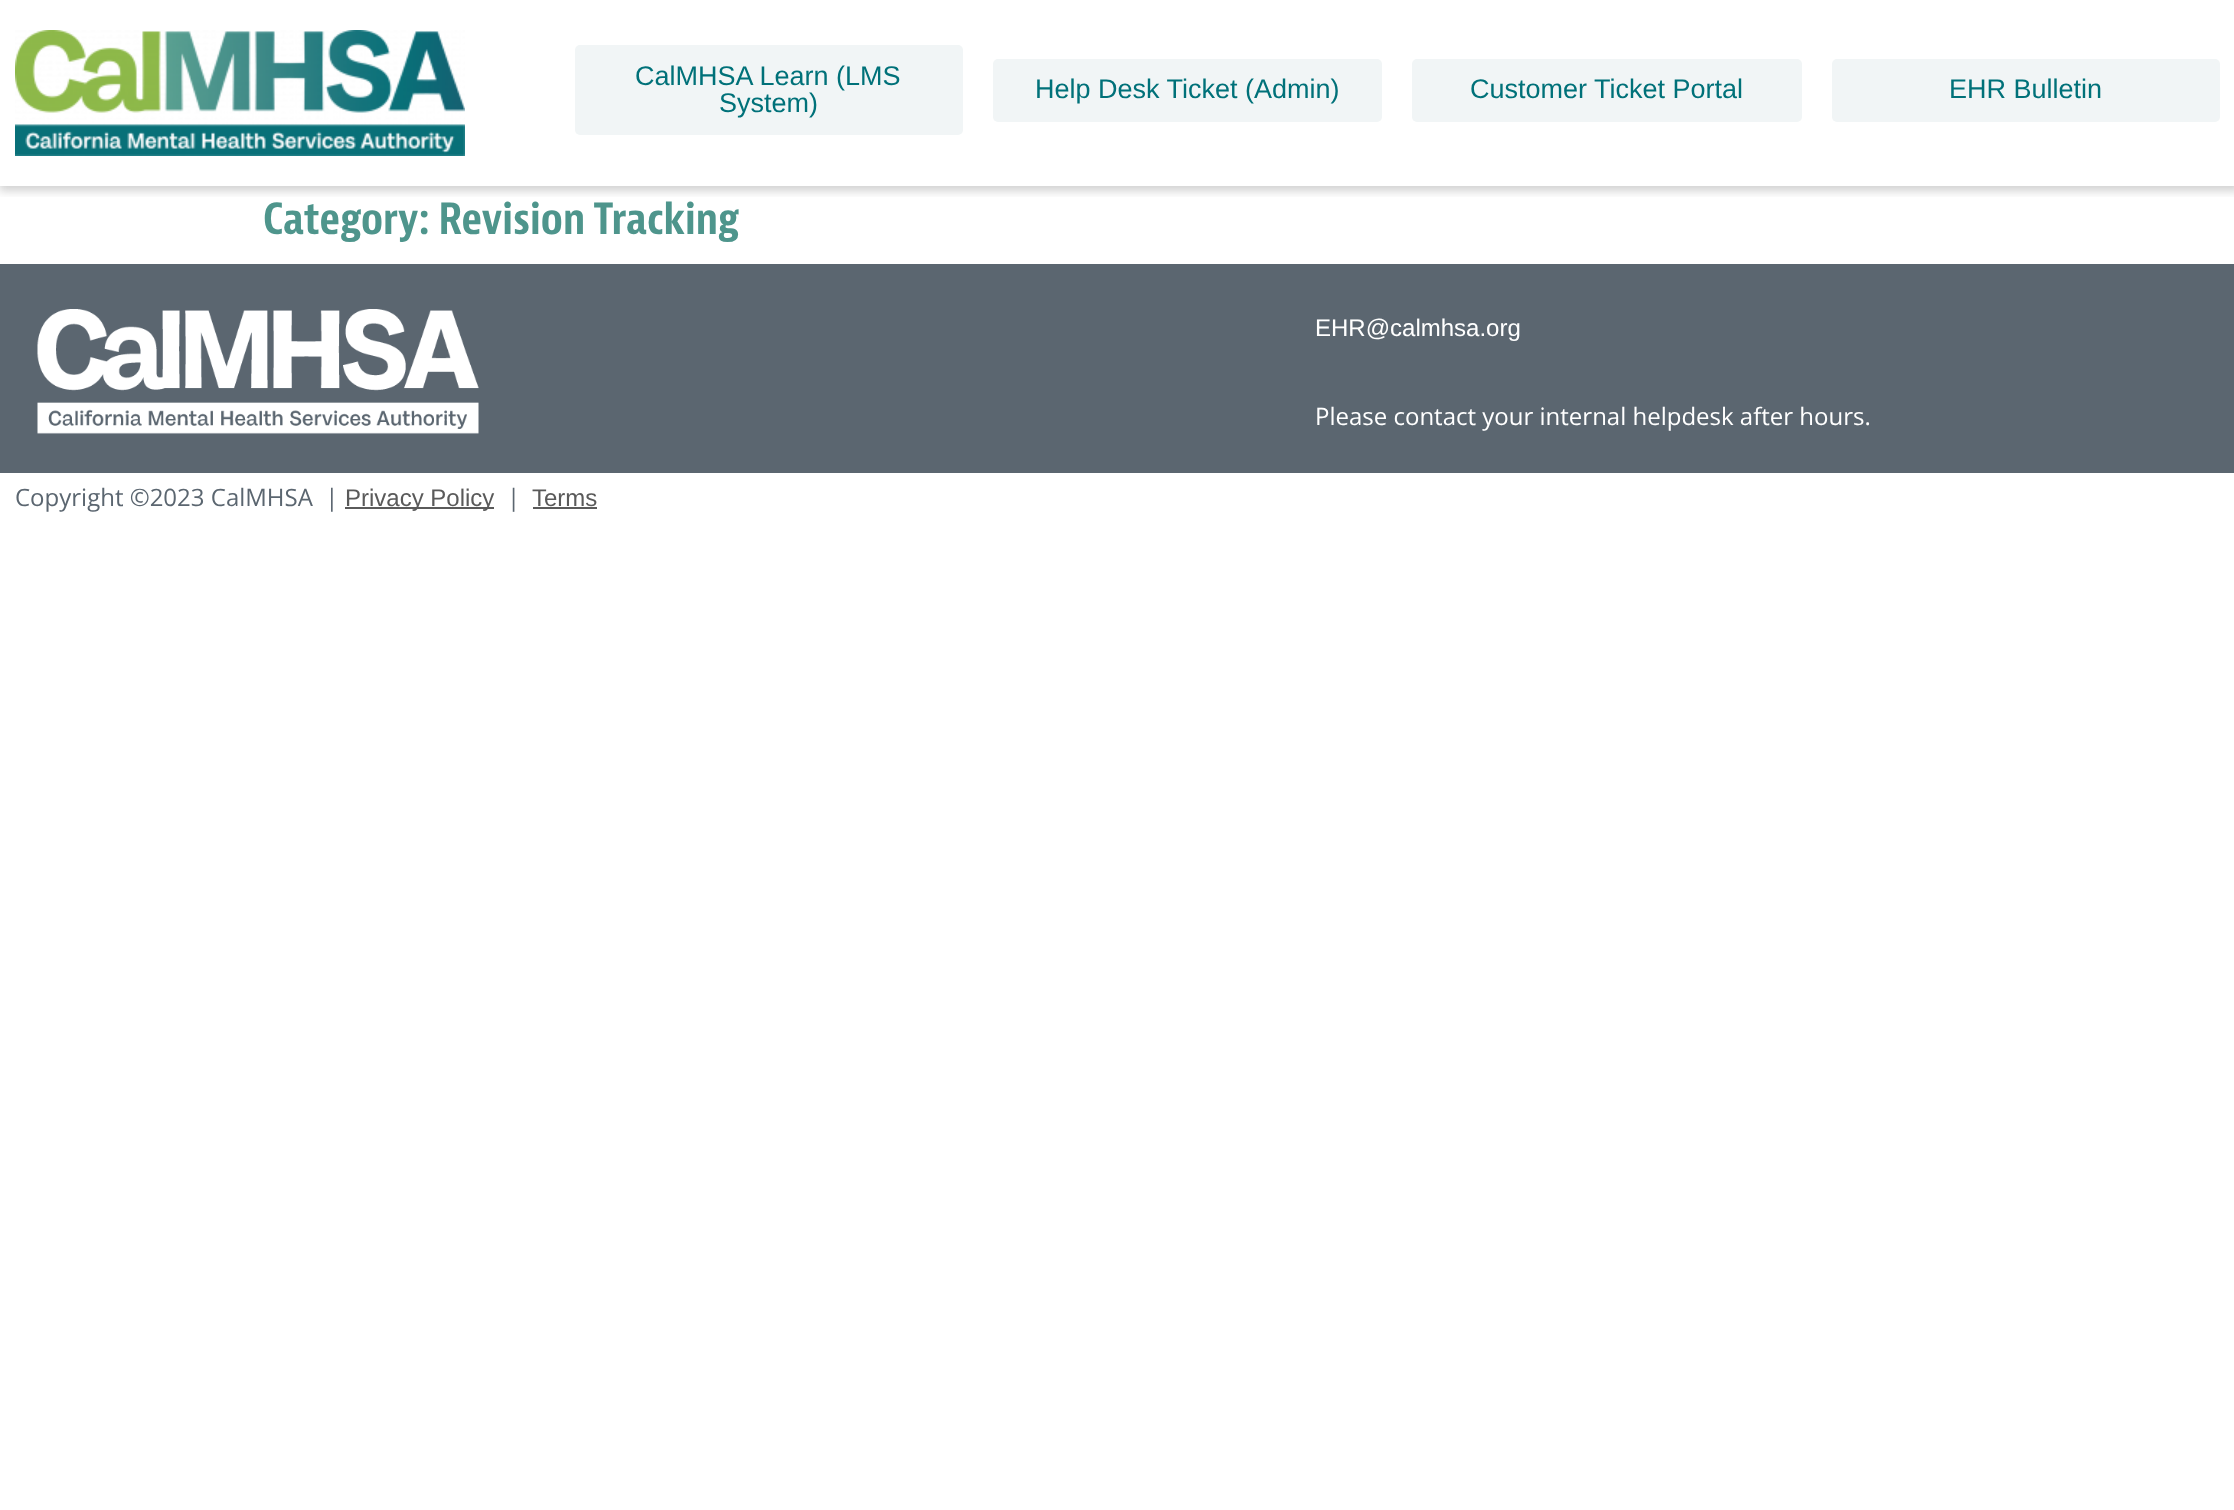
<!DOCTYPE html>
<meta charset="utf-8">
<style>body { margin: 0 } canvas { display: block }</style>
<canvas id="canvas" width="2234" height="1510"></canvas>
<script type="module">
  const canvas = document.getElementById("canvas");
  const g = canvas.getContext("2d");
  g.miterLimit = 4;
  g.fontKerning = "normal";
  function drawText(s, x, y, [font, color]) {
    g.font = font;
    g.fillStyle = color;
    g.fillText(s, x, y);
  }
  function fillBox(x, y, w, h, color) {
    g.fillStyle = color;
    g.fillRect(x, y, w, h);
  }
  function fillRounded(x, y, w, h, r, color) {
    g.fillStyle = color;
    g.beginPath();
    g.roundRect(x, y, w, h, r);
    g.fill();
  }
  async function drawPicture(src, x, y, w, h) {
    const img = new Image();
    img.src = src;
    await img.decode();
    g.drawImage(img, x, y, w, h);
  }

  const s1 = ["27px Liberation Sans", "#007179"];
  const s2 = ["bold 45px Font", "#4E958C"];
  const s3 = ["24px Liberation Sans", "#FFFFFF"];
  const s4 = ["24px Open Sans", "#FFFFFF"];
  const s5 = ["24px Open Sans", "#5B6670"];
  const s6 = ["24px Liberation Sans", "#5A5A5A"];

  fillBox(0, 0, 2234, 1510, "#FFFFFF");
  g.save();
  g.beginPath();
  g.rect(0, 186, 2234, 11);
  g.clip();
  g.fillStyle = "rgba(0, 0, 0, 0.18)";
  g.filter = "blur(5px)";
  g.beginPath();
  g.rect(-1, -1, 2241, 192);
  g.fill();
  g.filter = "none";
  g.restore();
  await drawPicture("pic1.png", 15, 30, 450, 126);
  fillRounded(575, 45, 388, 90, 5, "#F1F5F6");
  drawText("CalMHSA Learn (LMS", 635, 85, s1);
  drawText("System)", 719, 112, s1);
  fillRounded(993, 59, 389, 63, 5, "#F1F5F6");
  drawText("Help Desk Ticket (Admin)", 1035, 98, s1);
  fillRounded(1412, 59, 390, 63, 5, "#F1F5F6");
  drawText("Customer Ticket Portal", 1470, 98, s1);
  fillRounded(1832, 59, 388, 63, 5, "#F1F5F6");
  drawText("EHR Bulletin", 1949, 98, s1);
  drawText("Category: Revision Tracking", 263, 234, s2);
  fillBox(0, 264, 2234, 209, "#5B6670");
  await drawPicture("pic2.png", 37, 309, 442, 125);
  drawText("EHR@calmhsa.org", 1315, 336, s3);
  drawText("Please contact your internal helpdesk after hours.", 1315, 425, s4);
  drawText("Copyright ©2023 CalMHSA  |", 15, 506, s5);
  fillBox(345, 507, 149, 2, "#5A5A5A");
  drawText("Privacy Policy", 345, 506, s6);
  drawText("|", 507, 506, s5);
  drawText("Terms", 532, 506, s6);
  fillBox(533, 507, 64, 2, "#5A5A5A");
</script>
